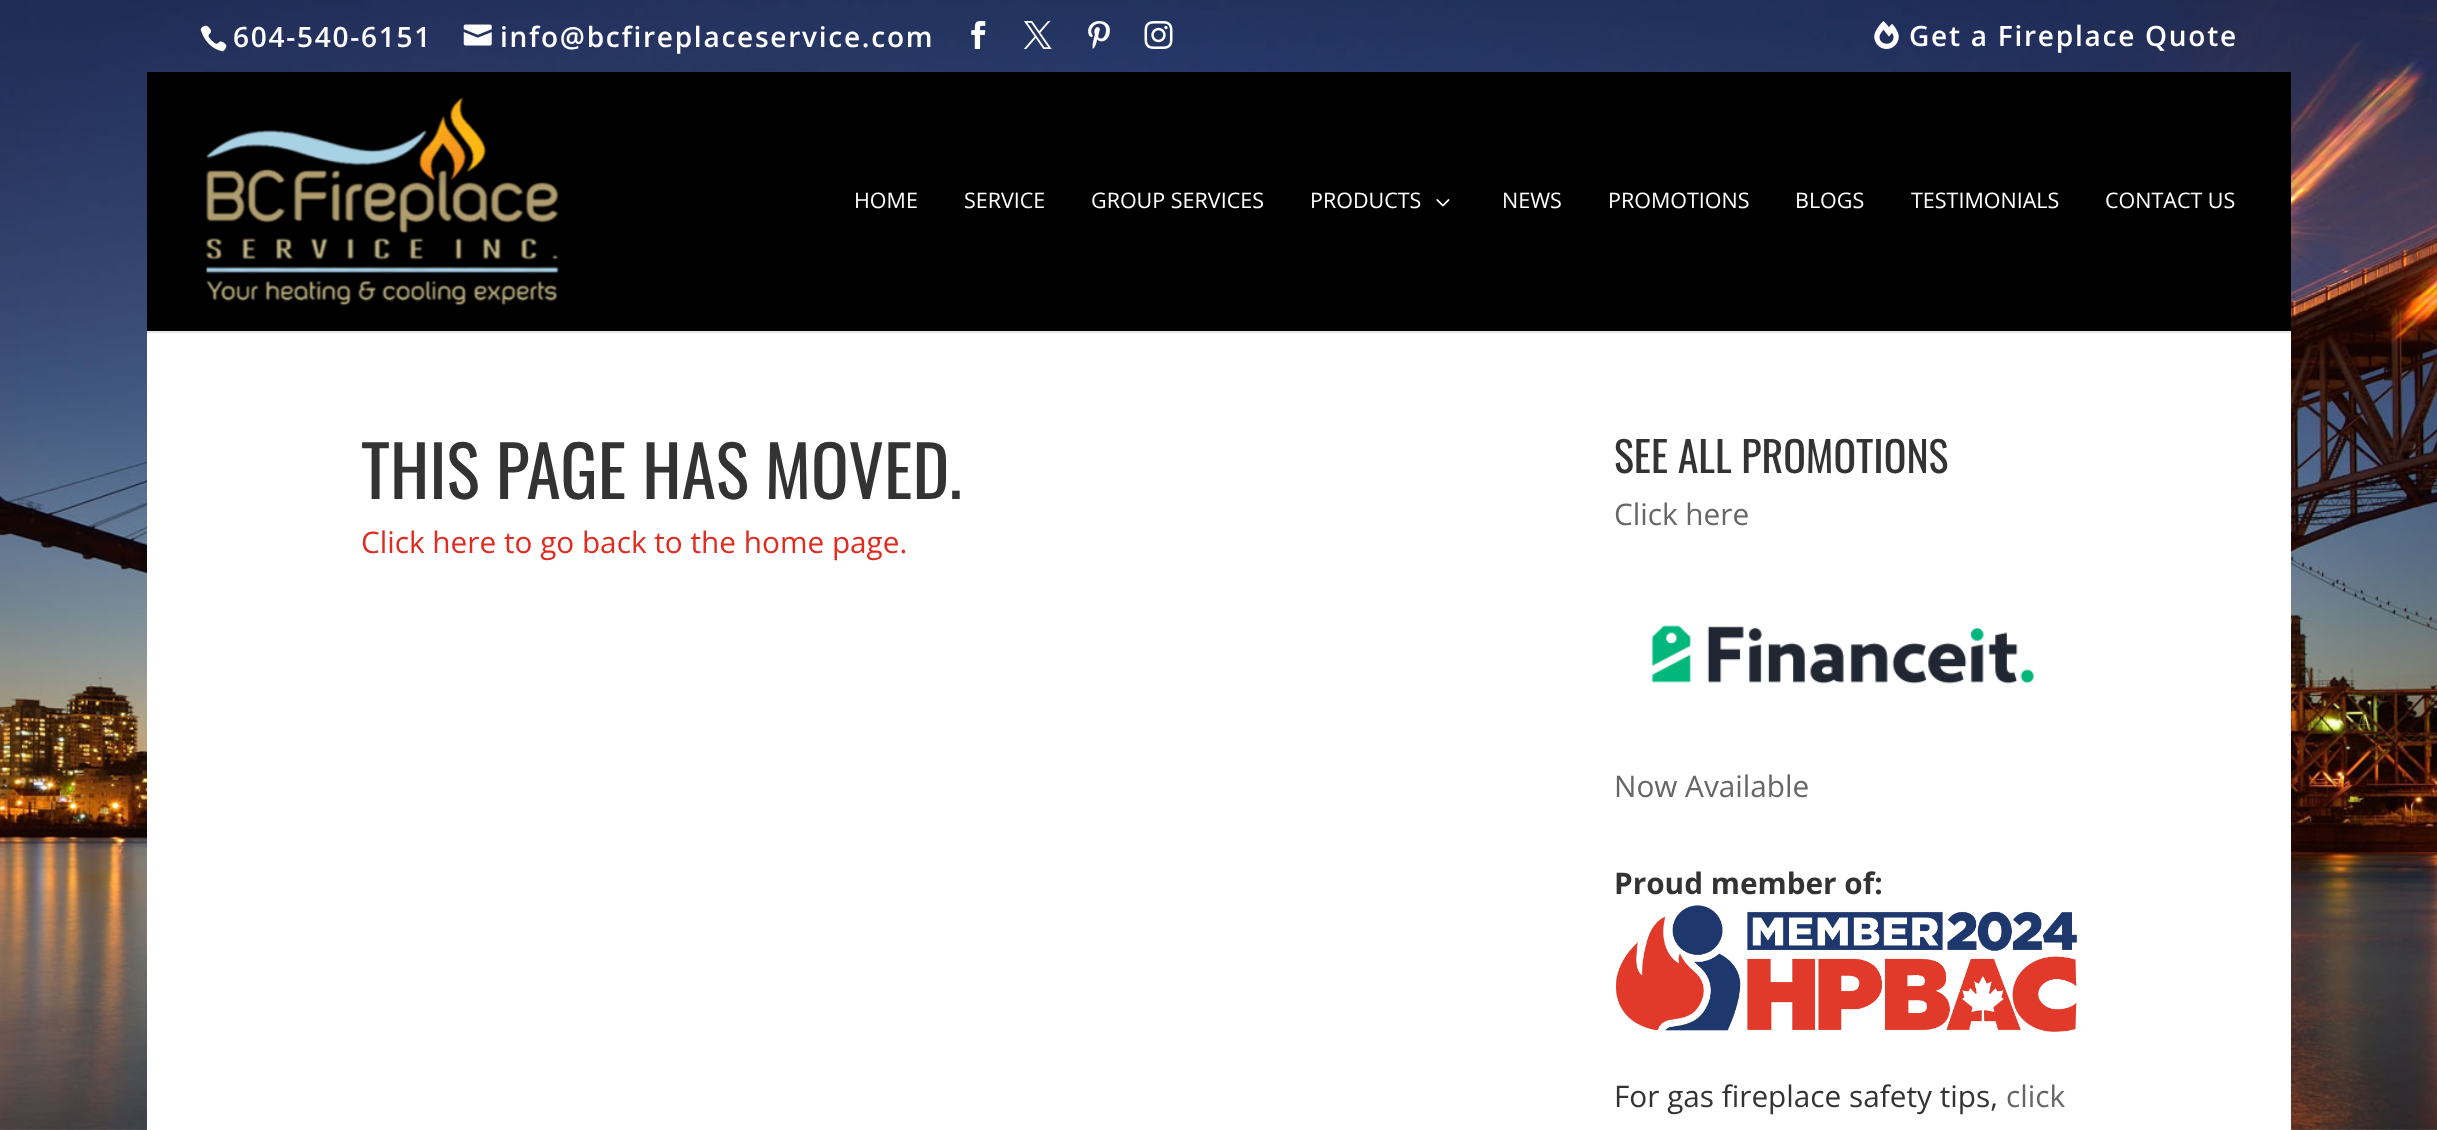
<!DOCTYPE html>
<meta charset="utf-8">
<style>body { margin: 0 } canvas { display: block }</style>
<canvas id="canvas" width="2437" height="1130"></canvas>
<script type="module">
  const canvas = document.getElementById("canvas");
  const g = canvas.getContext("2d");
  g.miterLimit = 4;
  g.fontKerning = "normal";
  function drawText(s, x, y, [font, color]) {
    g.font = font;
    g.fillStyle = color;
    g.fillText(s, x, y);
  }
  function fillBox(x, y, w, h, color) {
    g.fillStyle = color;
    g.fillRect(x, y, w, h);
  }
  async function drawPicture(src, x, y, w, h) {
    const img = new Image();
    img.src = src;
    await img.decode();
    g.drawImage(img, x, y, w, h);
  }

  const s1 = ["600 28px Open Sans", "#FFFFFF"];
  const s2 = ["21.5px Open Sans", "#FFFFFF"];
  const s3 = ["70px Oswald", "#333333"];
  const s4 = ["29.75px Open Sans", "#E02B20"];
  const s5 = ["42px Oswald", "#333333"];
  const s6 = ["29.75px Open Sans", "#666666"];
  const s7 = ["bold 29.75px Open Sans", "#333333"];
  const s8 = ["29.75px Open Sans", "#333333"];

  fillBox(0, 0, 2437, 1130, "#FFFFFF");
  await drawPicture("pic1.png", 0, 0, 2437, 1130);
  await drawPicture("pic2.png", 200, 25, 27, 27);
  g.letterSpacing = "1.75px";
  drawText("604-540-6151", 233, 47, s1);
  await drawPicture("pic3.png", 463, 24, 29, 22);
  drawText("info@bcfireplaceservice.com", 500, 47, s1);
  await drawPicture("pic4.png", 971, 21, 15, 28);
  await drawPicture("pic5.png", 1024, 21, 28, 28);
  await drawPicture("pic6.png", 1088, 21, 22, 28);
  await drawPicture("pic7.png", 1144, 21, 29, 28);
  await drawPicture("pic8.png", 1874, 21, 25, 28);
  drawText("Get a Fireplace Quote", 1909, 46, s1);
  g.fillStyle = "#E6E6E6";
  g.beginPath();
  g.moveTo(147, 331);
  g.lineTo(147, 333);
  g.lineTo(2291, 333);
  g.lineTo(2291, 74);
  g.lineTo(2291, 331);
  g.closePath();
  g.fill();
  fillBox(147, 72, 2144, 259, "#000000");
  await drawPicture("pic9.png", 206, 97, 353, 209);
  g.letterSpacing = "0px";
  drawText("HOME", 854, 208, s2);
  drawText("SERVICE", 964, 208, s2);
  drawText("GROUP SERVICES", 1091, 208, s2);
  drawText("PRODUCTS", 1310, 208, s2);
  await drawPicture("pic10.png", 1436, 199, 14, 8);
  drawText("NEWS", 1502, 208, s2);
  drawText("PROMOTIONS", 1608, 208, s2);
  drawText("BLOGS", 1795, 208, s2);
  drawText("TESTIMONIALS", 1911, 208, s2);
  drawText("CONTACT US", 2105, 208, s2);
  fillBox(147, 333, 2144, 797, "#FFFFFF");
  drawText("THIS PAGE HAS MOVED.", 361, 499, s3);
  drawText("Click here to go back to the home page.", 361, 553, s4);
  drawText("SEE ALL PROMOTIONS", 1614, 473, s5);
  drawText("Click here", 1614, 525, s6);
  await drawPicture("pic11.png", 1652, 625, 383, 59);
  drawText("Now Available", 1614, 797, s6);
  drawText("Proud member of:", 1614, 894, s7);
  await drawPicture("pic12.png", 1616, 905, 461, 127);
  drawText("For gas fireplace safety tips,", 1614, 1107, s8);
  drawText("click", 2006, 1107, s6);
</script>
